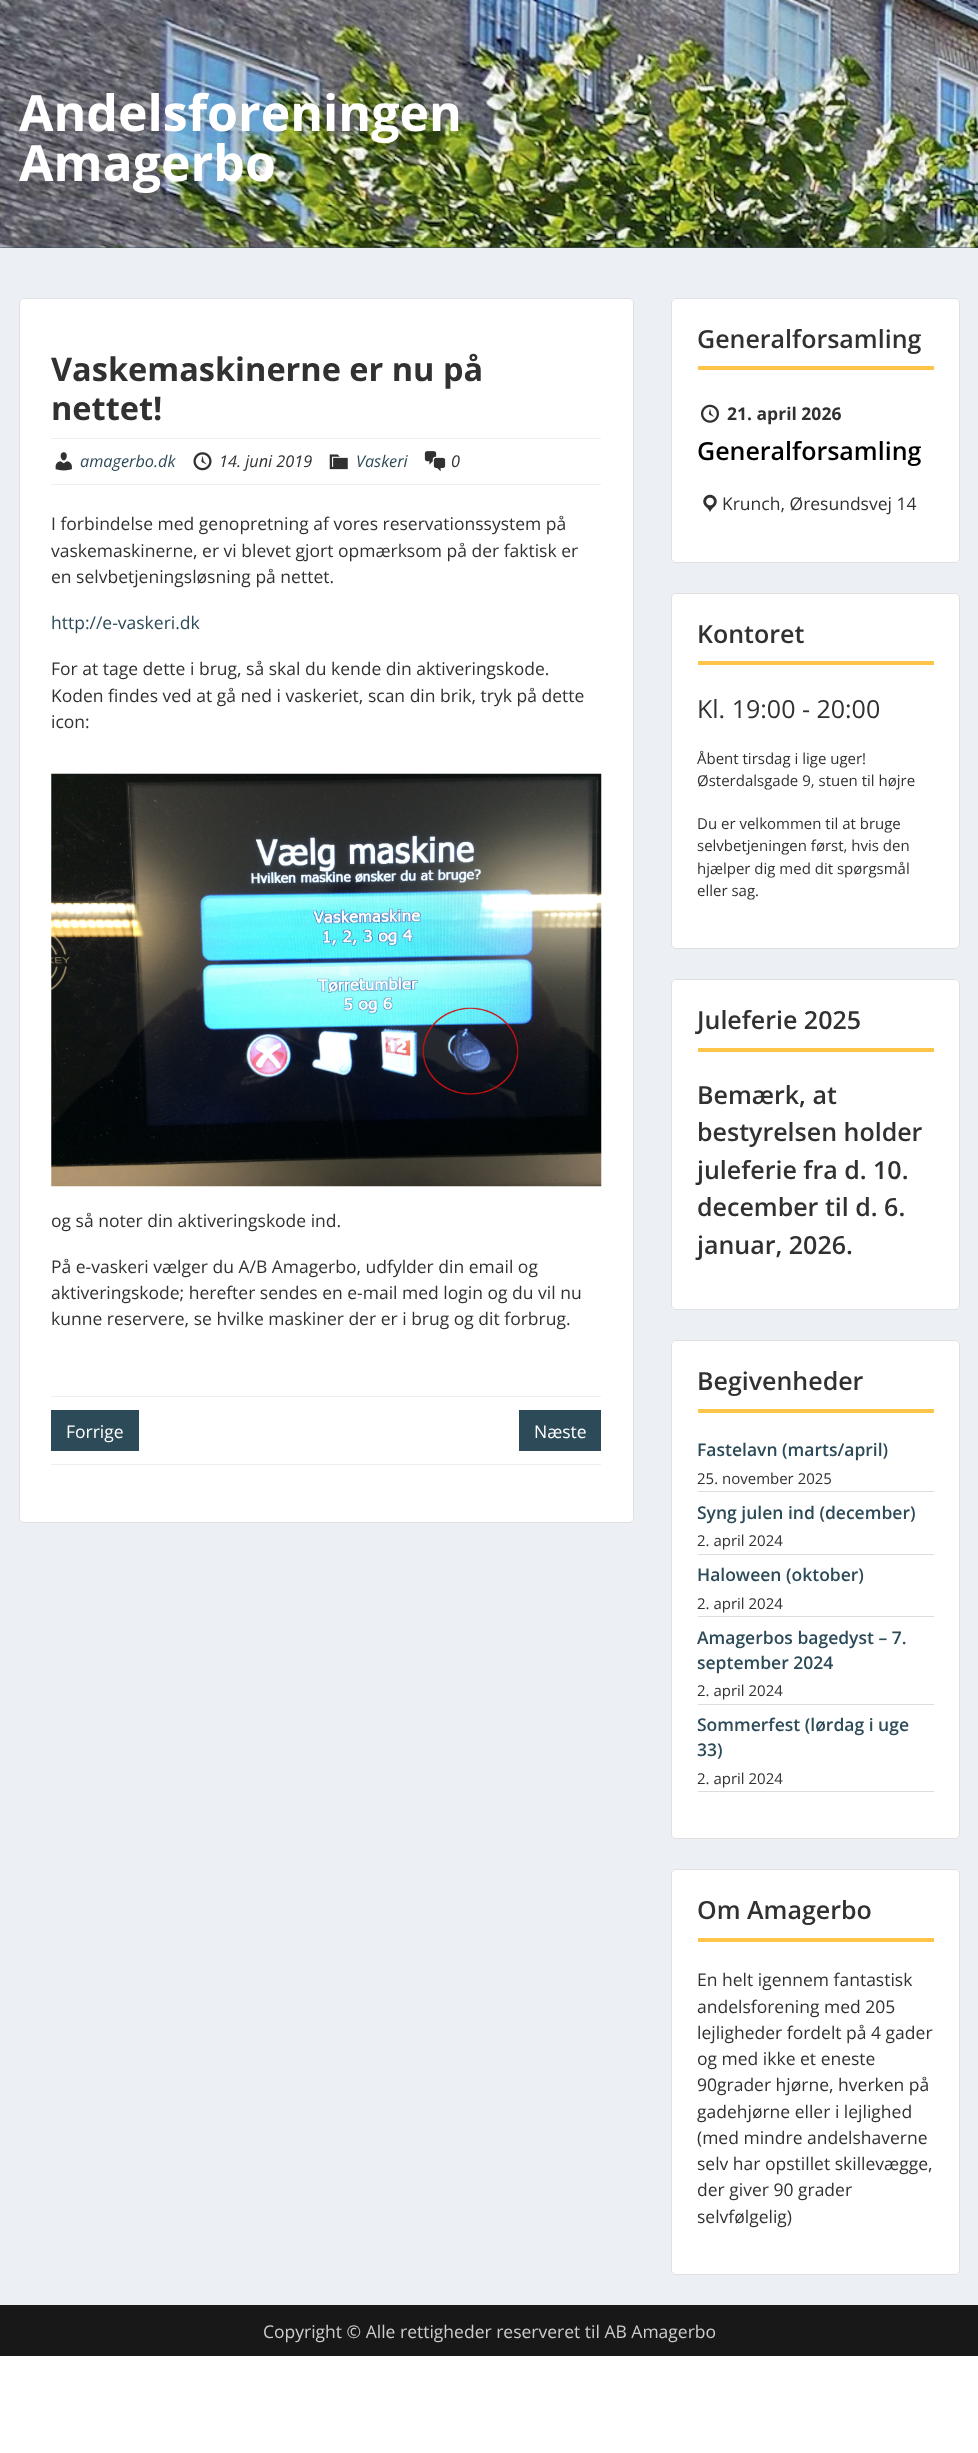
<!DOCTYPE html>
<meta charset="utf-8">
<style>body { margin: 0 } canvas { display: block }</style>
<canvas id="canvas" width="978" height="2453"></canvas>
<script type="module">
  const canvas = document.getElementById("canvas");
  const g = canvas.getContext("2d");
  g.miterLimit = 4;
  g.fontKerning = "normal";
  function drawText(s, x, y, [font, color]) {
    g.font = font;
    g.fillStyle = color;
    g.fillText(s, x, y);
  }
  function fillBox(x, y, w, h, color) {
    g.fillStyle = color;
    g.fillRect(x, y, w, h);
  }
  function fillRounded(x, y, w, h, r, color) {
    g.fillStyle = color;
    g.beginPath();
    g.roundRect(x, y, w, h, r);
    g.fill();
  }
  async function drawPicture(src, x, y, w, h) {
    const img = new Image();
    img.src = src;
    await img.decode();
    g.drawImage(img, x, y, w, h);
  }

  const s1 = ["bold 50px Open Sans", "#FFFFFF"];
  const s2 = ["bold 32.5px Open Sans", "#313131"];
  const s3 = ["italic 16.25px Open Sans", "#2C4A58"];
  const s4 = ["italic 16.25px Open Sans", "#313131"];
  const s5 = ["17.5px Open Sans", "#313131"];
  const s6 = ["17.5px Open Sans", "#2C4A58"];
  const s7 = ["17.5px Open Sans", "#FFFFFF"];
  const s8 = ["600 25px Open Sans", "#313131"];
  const s9 = ["bold 17.5px Open Sans", "#313131"];
  const s10 = ["600 25px Open Sans", "#000000"];
  const s11 = ["25px Open Sans", "#313131"];
  const s12 = ["15px Open Sans", "#313131"];
  const s13 = ["600 17.5px Open Sans", "#2C4A58"];
  const s14 = ["17.5px Open Sans", "#CCCCCC"];

  fillBox(0, 0, 978, 2453, "#FFFFFF");
  fillBox(0, 248, 978, 2057, "#ECF0F5");
  fillBox(0, 247, 978, 1, "#3E5062");
  await drawPicture("pic1.png", 0, 0, 978, 248);
  drawText("Andelsforeningen", 19, 131, s1);
  drawText("Amagerbo", 19, 181, s1);
  fillRounded(19, 298, 615, 1225, 5, "#FFFFFF");
  g.beginPath();
  g.roundRect(19.5, 298.5, 614, 1224, 4.5);
  g.strokeStyle = "rgba(0, 0, 0, 0.12)";
  g.stroke();
  drawText("Vaskemaskinerne er nu på", 51, 381, s2);
  drawText("nettet!", 51, 420, s2);
  fillBox(51, 438, 550, 1, "#EEEEEE");
  fillBox(51, 484, 550, 1, "#EEEEEE");
  await drawPicture("pic2.png", 55, 452, 17, 19);
  drawText("amagerbo.dk", 80, 467, s3);
  await drawPicture("pic3.png", 193, 452, 19, 19);
  drawText("14. juni 2019", 219, 467, s4);
  await drawPicture("pic4.png", 329, 454, 19, 16);
  drawText("Vaskeri", 356, 467, s3);
  await drawPicture("pic5.png", 424, 451, 22, 21);
  drawText("0", 451, 467, s4);
  drawText("I forbindelse med genopretning af vores reservationssystem på", 51, 530, s5);
  drawText("vaskemaskinerne, er vi blevet gjort opmærksom på der faktisk er", 51, 557, s5);
  drawText("en selvbetjeningsløsning på nettet.", 51, 583, s5);
  drawText("http://e-vaskeri.dk", 51, 629, s6);
  drawText("For at tage dette i brug, så skal du kende din aktiveringskode.", 51, 675, s5);
  drawText("Koden findes ved at gå ned i vaskeriet, scan din brik, tryk på dette", 51, 702, s5);
  drawText("icon:", 51, 728, s5);
  await drawPicture("pic6.png", 51, 773, 551, 414);
  drawText("og så noter din aktiveringskode ind.", 51, 1227, s5);
  drawText("På e-vaskeri vælger du A/B Amagerbo, udfylder din email og", 51, 1273, s5);
  drawText("aktiveringskode; herefter sendes en e-mail med login og du vil nu", 51, 1299, s5);
  drawText("kunne reservere, se hvilke maskiner der er i brug og dit forbrug.", 51, 1325, s5);
  fillBox(51, 1396, 550, 1, "#EEEEEE");
  fillBox(51, 1464, 550, 1, "#EEEEEE");
  fillBox(51, 1410, 88, 41, "#2C4A58");
  drawText("Forrige", 66, 1438, s7);
  fillBox(519, 1410, 82, 41, "#2C4A58");
  drawText("Næste", 534, 1438, s7);
  fillRounded(671, 298, 289, 265, 5, "#FFFFFF");
  g.beginPath();
  g.roundRect(671.5, 298.5, 288, 264, 4.5);
  g.stroke();
  fillBox(698, 366, 236, 4, "#FFC44A");
  drawText("Generalforsamling", 697, 348, s8);
  await drawPicture("pic7.png", 701, 404, 18, 19);
  drawText("21. april 2026", 727, 420, s9);
  drawText("Generalforsamling", 697, 460, s10);
  await drawPicture("pic8.png", 703, 494, 14, 18);
  drawText("Krunch, Øresundsvej 14", 722, 510, s5);
  fillRounded(671, 593, 289, 356, 5, "#FFFFFF");
  g.beginPath();
  g.roundRect(671.5, 593.5, 288, 355, 4.5);
  g.stroke();
  fillBox(698, 661, 236, 4, "#FFC44A");
  drawText("Kontoret", 697, 643, s8);
  drawText("Kl. 19:00 - 20:00", 697, 718, s11);
  drawText("Åbent tirsdag i lige uger!", 697, 764, s12);
  drawText("Østerdalsgade 9, stuen til højre", 697, 786, s12);
  drawText("Du er velkommen til at bruge", 697, 829, s12);
  drawText("selvbetjeningen først, hvis den", 697, 851, s12);
  drawText("hjælper dig med dit spørgsmål", 697, 874, s12);
  drawText("eller sag.", 697, 896, s12);
  fillRounded(671, 979, 289, 331, 5, "#FFFFFF");
  g.beginPath();
  g.roundRect(671.5, 979.5, 288, 330, 4.5);
  g.stroke();
  fillBox(698, 1048, 236, 4, "#FFC44A");
  drawText("Juleferie 2025", 697, 1029, s8);
  drawText("Bemærk, at", 697, 1104, s8);
  drawText("bestyrelsen holder", 697, 1141, s8);
  drawText("juleferie fra d. 10.", 697, 1179, s8);
  drawText("december til d. 6.", 697, 1216, s8);
  drawText("januar, 2026.", 697, 1254, s8);
  fillRounded(671, 1340, 289, 499, 5, "#FFFFFF");
  g.beginPath();
  g.roundRect(671.5, 1340.5, 288, 498, 4.5);
  g.stroke();
  fillBox(698, 1409, 236, 4, "#FFC44A");
  drawText("Begivenheder", 697, 1390, s8);
  fillBox(698, 1491, 236, 1, "#DDDDDD");
  drawText("Fastelavn (marts/april)", 697, 1456, s13);
  drawText("25. november 2025", 697, 1484, s12);
  fillBox(698, 1554, 236, 1, "#DDDDDD");
  drawText("Syng julen ind (december)", 697, 1519, s13);
  drawText("2. april 2024", 697, 1546, s12);
  fillBox(698, 1616, 236, 1, "#DDDDDD");
  drawText("Haloween (oktober)", 697, 1581, s13);
  drawText("2. april 2024", 697, 1609, s12);
  fillBox(698, 1704, 236, 1, "#DDDDDD");
  drawText("Amagerbos bagedyst – 7.", 697, 1644, s13);
  drawText("september 2024", 697, 1669, s13);
  drawText("2. april 2024", 697, 1696, s12);
  fillBox(698, 1791, 236, 1, "#DDDDDD");
  drawText("Sommerfest (lørdag i uge", 697, 1731, s13);
  drawText("33)", 697, 1756, s13);
  drawText("2. april 2024", 697, 1784, s12);
  fillRounded(671, 1869, 289, 406, 5, "#FFFFFF");
  g.beginPath();
  g.roundRect(671.5, 1869.5, 288, 405, 4.5);
  g.stroke();
  fillBox(698, 1938, 236, 4, "#FFC44A");
  drawText("Om Amagerbo", 697, 1919, s8);
  drawText("En helt igennem fantastisk", 697, 1986, s5);
  drawText("andelsforening med 205", 697, 2013, s5);
  drawText("lejligheder fordelt på 4 gader", 697, 2039, s5);
  drawText("og med ikke et eneste", 697, 2065, s5);
  drawText("90grader hjørne, hverken på", 697, 2091, s5);
  drawText("gadehjørne eller i lejlighed", 697, 2118, s5);
  drawText("(med mindre andelshaverne", 697, 2144, s5);
  drawText("selv har opstillet skillevægge,", 697, 2170, s5);
  drawText("der giver 90 grader", 697, 2196, s5);
  drawText("selvfølgelig)", 697, 2223, s5);
  fillBox(0, 2305, 978, 51, "#181818");
  drawText("Copyright © Alle rettigheder reserveret til AB Amagerbo", 263, 2338, s14);
</script>
